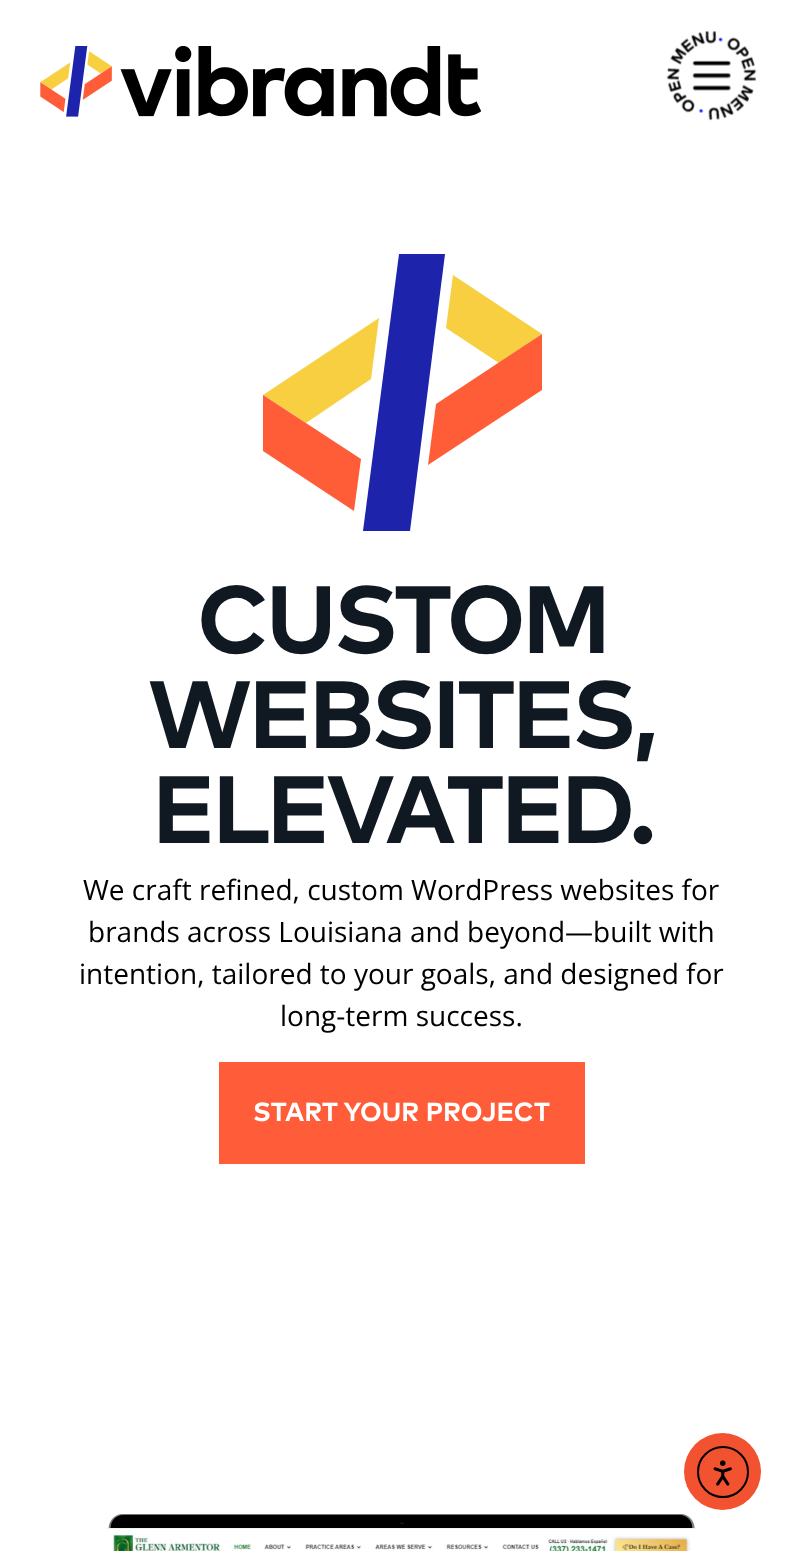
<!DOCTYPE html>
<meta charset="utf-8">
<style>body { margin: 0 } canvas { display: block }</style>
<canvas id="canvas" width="803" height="1551"></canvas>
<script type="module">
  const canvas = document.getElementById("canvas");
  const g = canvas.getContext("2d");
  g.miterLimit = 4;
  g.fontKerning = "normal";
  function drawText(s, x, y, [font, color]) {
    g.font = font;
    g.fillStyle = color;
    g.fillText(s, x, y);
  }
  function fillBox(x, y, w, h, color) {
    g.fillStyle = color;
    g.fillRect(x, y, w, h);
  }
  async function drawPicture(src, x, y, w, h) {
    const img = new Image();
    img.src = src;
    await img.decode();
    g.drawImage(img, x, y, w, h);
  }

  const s1 = ["bold 95.25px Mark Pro", "#101822"];
  const s2 = ["28px Open Sans", "#000000"];
  const s3 = ["bold 26.25px Mark Pro", "#FFFFFF"];

  fillBox(0, 0, 803, 1551, "#FFFFFF");
  await drawPicture("pic1.png", 40, 46, 441, 71);
  await drawPicture("pic2.png", 666, 30, 91, 91);
  g.fillStyle = "#F7CF40";
  g.beginPath();
  g.moveTo(371, 379);
  g.lineTo(379, 318);
  g.lineTo(263, 395);
  g.lineTo(306, 423);
  g.closePath();
  g.fill();
  g.beginPath();
  g.moveTo(499, 363);
  g.lineTo(542, 334);
  g.lineTo(453, 275);
  g.lineTo(446, 328);
  g.closePath();
  g.fill();
  g.fillStyle = "#FF5C38";
  g.beginPath();
  g.moveTo(542, 334);
  g.lineTo(436, 404);
  g.lineTo(428, 465);
  g.lineTo(542, 390);
  g.closePath();
  g.fill();
  g.fillStyle = "#1D23AB";
  g.beginPath();
  g.moveTo(445, 254);
  g.lineTo(399, 254);
  g.lineTo(363, 531);
  g.lineTo(410, 531);
  g.closePath();
  g.fill();
  g.fillStyle = "#FF5C38";
  g.beginPath();
  g.moveTo(263, 395);
  g.lineTo(263, 451);
  g.lineTo(354, 511);
  g.lineTo(361, 459);
  g.closePath();
  g.fill();
  g.letterSpacing = "-3.25px";
  drawText("CUSTOM", 197, 653, s1);
  drawText("WEBSITES,", 148, 748, s1);
  drawText("ELEVATED.", 152, 843, s1);
  g.letterSpacing = "0px";
  drawText("We craft refined, custom WordPress websites for", 83, 900, s2);
  drawText("brands across Louisiana and beyond—built with", 88, 942, s2);
  drawText("intention, tailored to your goals, and designed for", 79, 984, s2);
  drawText("long-term success.", 280, 1026, s2);
  fillBox(219, 1062, 366, 102, "#FF5D39");
  drawText("START YOUR PROJECT", 253, 1121, s3);
  await drawPicture("pic3.png", 108, 1514, 587, 14);
  await drawPicture("pic4.png", 106, 1528, 591, 23);
  g.fillStyle = "#F25230";
  g.beginPath();
  g.arc(722.5, 1471.5, 38.5, 0, Math.PI * 2);
  g.fill();
  g.beginPath();
  g.arc(723, 1472, 25, 0, Math.PI * 2);
  g.strokeStyle = "#000000";
  g.lineWidth = 2;
  g.stroke();
  await drawPicture("pic5.png", 713, 1460, 19, 26);
</script>
